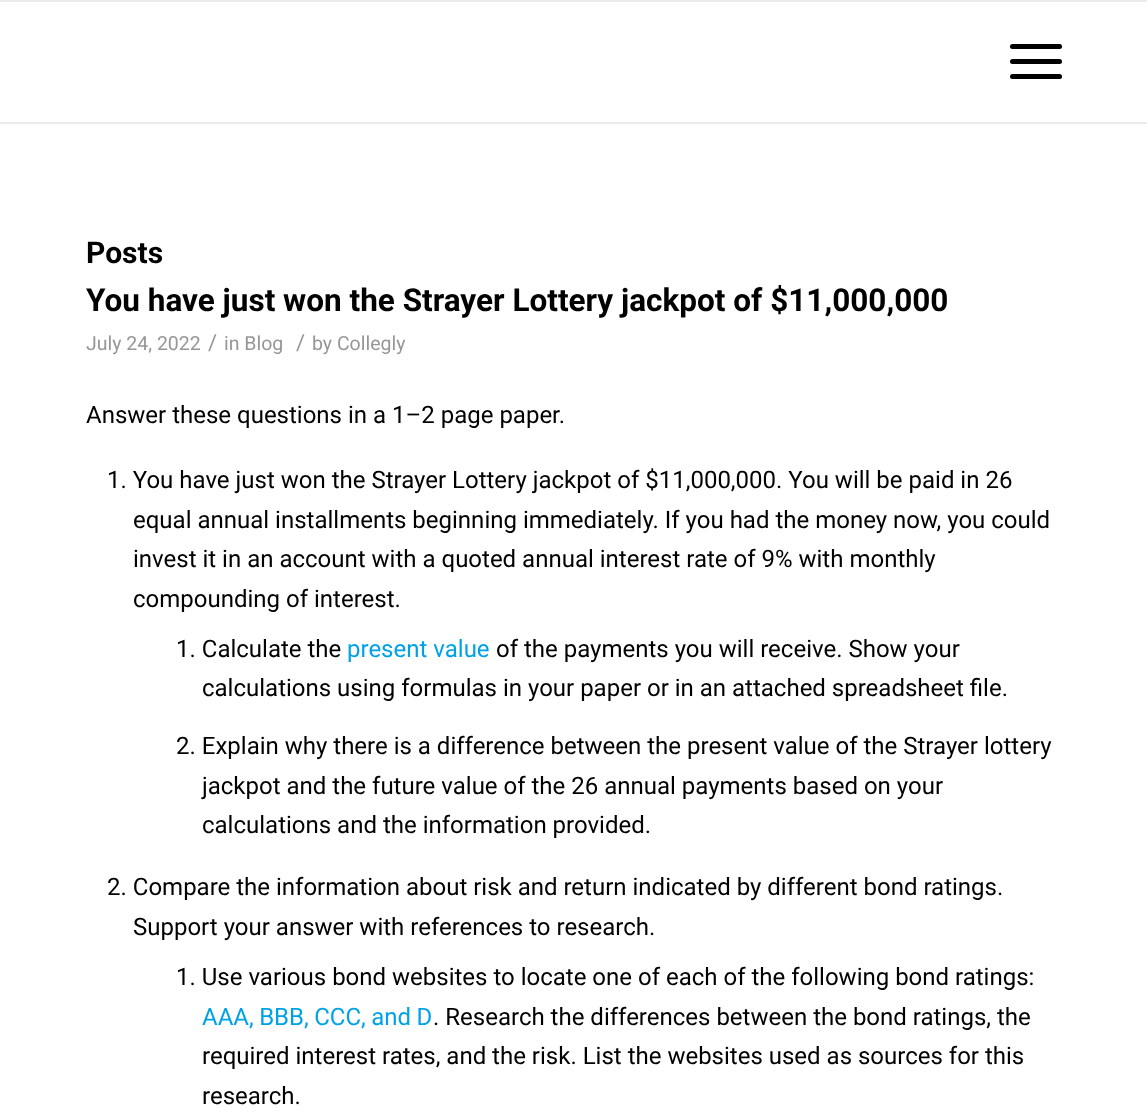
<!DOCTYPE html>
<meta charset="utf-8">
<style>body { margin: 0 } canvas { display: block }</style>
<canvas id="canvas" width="1147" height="1120"></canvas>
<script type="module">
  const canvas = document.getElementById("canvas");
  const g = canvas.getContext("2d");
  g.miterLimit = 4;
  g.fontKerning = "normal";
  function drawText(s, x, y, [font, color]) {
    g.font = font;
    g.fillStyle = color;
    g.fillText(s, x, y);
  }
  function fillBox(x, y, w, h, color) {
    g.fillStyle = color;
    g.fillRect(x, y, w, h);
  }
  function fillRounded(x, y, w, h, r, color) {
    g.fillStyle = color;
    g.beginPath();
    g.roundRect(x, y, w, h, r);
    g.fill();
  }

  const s1 = ["bold 30px Roboto", "#000000"];
  const s2 = ["bold 31.5px Roboto", "#000000"];
  const s3 = ["19.5px Roboto", "#969696"];
  const s4 = ["22px Roboto", "#969696"];
  const s5 = ["24px Roboto", "#000000"];
  const s6 = ["24px Roboto", "#00A2E7"];

  fillBox(0, 0, 1147, 1120, "#FFFFFF");
  fillBox(0, 0, 1147, 2, "#EBEBEB");
  fillBox(0, 122, 1147, 2, "#EBEBEB");
  fillRounded(1010, 59, 52, 5, 2.5, "#000000");
  fillRounded(1010, 44, 52, 5, 2.5, "#000000");
  fillRounded(1010, 74, 52, 5, 2.5, "#000000");
  drawText("Posts", 86, 263, s1);
  drawText("You have just won the Strayer Lottery jackpot of $11,000,000", 86, 311, s2);
  drawText("July 24, 2022", 86, 350, s3);
  drawText("/", 208, 350, s4);
  drawText("in Blog", 224, 350, s3);
  drawText("/", 296, 350, s4);
  drawText("by Collegly", 312, 350, s3);
  drawText("Answer these questions in a 1–2 page paper.", 86, 423, s5);
  drawText("1. You have just won the Strayer Lottery jackpot of $11,000,000. You will be paid in 26", 107, 488, s5);
  drawText("equal annual installments beginning immediately. If you had the money now, you could", 133, 528, s5);
  drawText("invest it in an account with a quoted annual interest rate of 9% with monthly", 133, 567, s5);
  drawText("compounding of interest.", 133, 607, s5);
  drawText("1. Calculate the", 176, 657, s5);
  drawText("present value", 347, 657, s6);
  drawText("of the payments you will receive. Show your", 496, 657, s5);
  drawText("calculations using formulas in your paper or in an attached spreadsheet file.", 202, 696, s5);
  drawText("2. Explain why there is a difference between the present value of the Strayer lottery", 176, 754, s5);
  drawText("jackpot and the future value of the 26 annual payments based on your", 202, 794, s5);
  drawText("calculations and the information provided.", 202, 833, s5);
  drawText("2. Compare the information about risk and return indicated by different bond ratings.", 107, 895, s5);
  drawText("Support your answer with references to research.", 133, 935, s5);
  drawText("1. Use various bond websites to locate one of each of the following bond ratings:", 176, 985, s5);
  g.wordSpacing = "-0.5px";
  drawText("AAA, BBB, CCC, and D", 202, 1025, s6);
  g.wordSpacing = "0px";
  drawText(". Research the differences between the bond ratings, the", 433, 1025, s5);
  drawText("required interest rates, and the risk. List the websites used as sources for this", 202, 1064, s5);
  drawText("research.", 202, 1104, s5);
</script>
